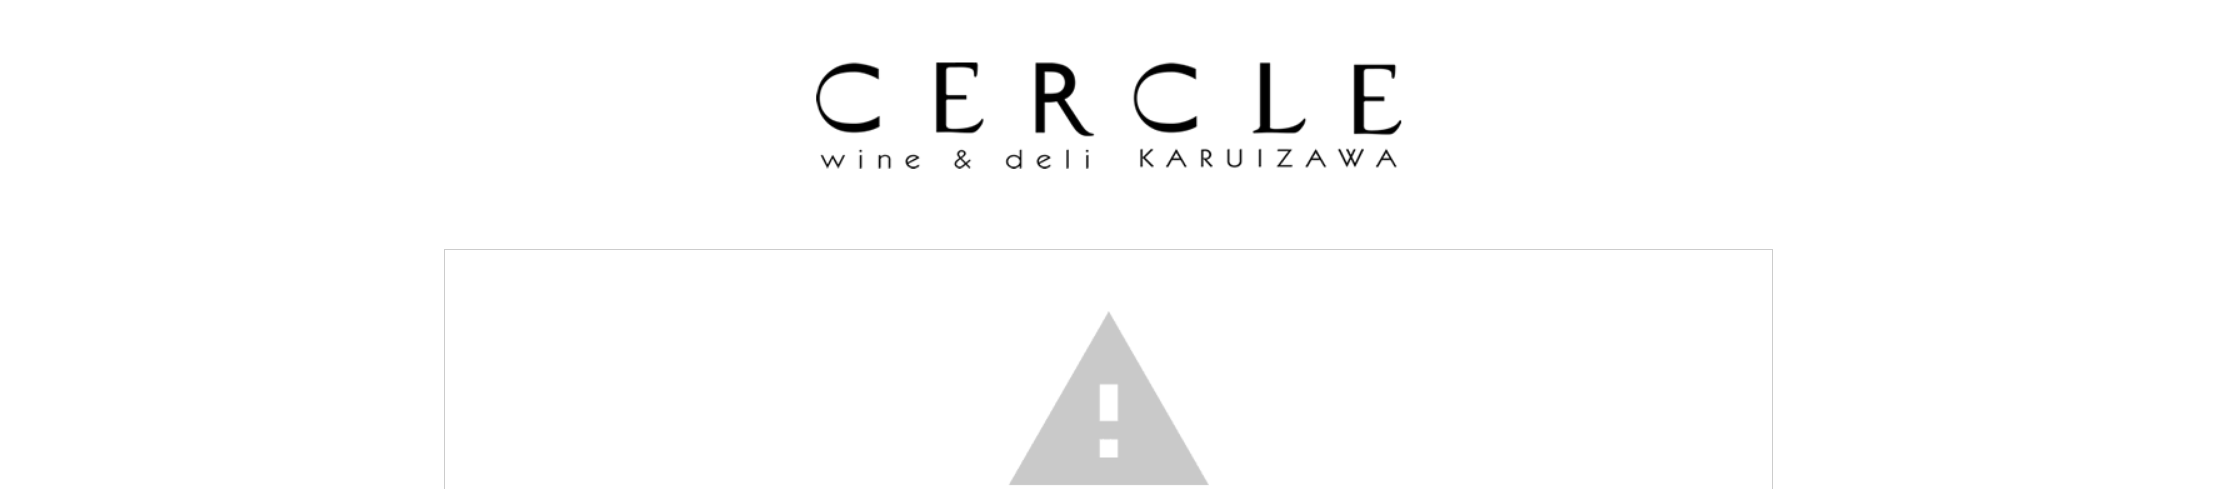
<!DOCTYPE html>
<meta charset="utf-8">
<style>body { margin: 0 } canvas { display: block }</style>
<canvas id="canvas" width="2216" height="489"></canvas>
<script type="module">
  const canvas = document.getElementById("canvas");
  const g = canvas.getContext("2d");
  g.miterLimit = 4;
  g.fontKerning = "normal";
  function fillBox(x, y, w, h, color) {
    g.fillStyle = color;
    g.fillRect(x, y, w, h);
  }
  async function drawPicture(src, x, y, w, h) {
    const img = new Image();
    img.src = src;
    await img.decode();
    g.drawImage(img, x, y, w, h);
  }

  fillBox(0, 0, 2216, 489, "#FFFFFF");
  await drawPicture("pic1.png", 816, 62, 586, 107);
  g.strokeStyle = "#CCCCCC";
  g.strokeRect(444.5, 249.5, 1328, 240);
  await drawPicture("pic2.png", 1008, 311, 201, 175);
</script>
